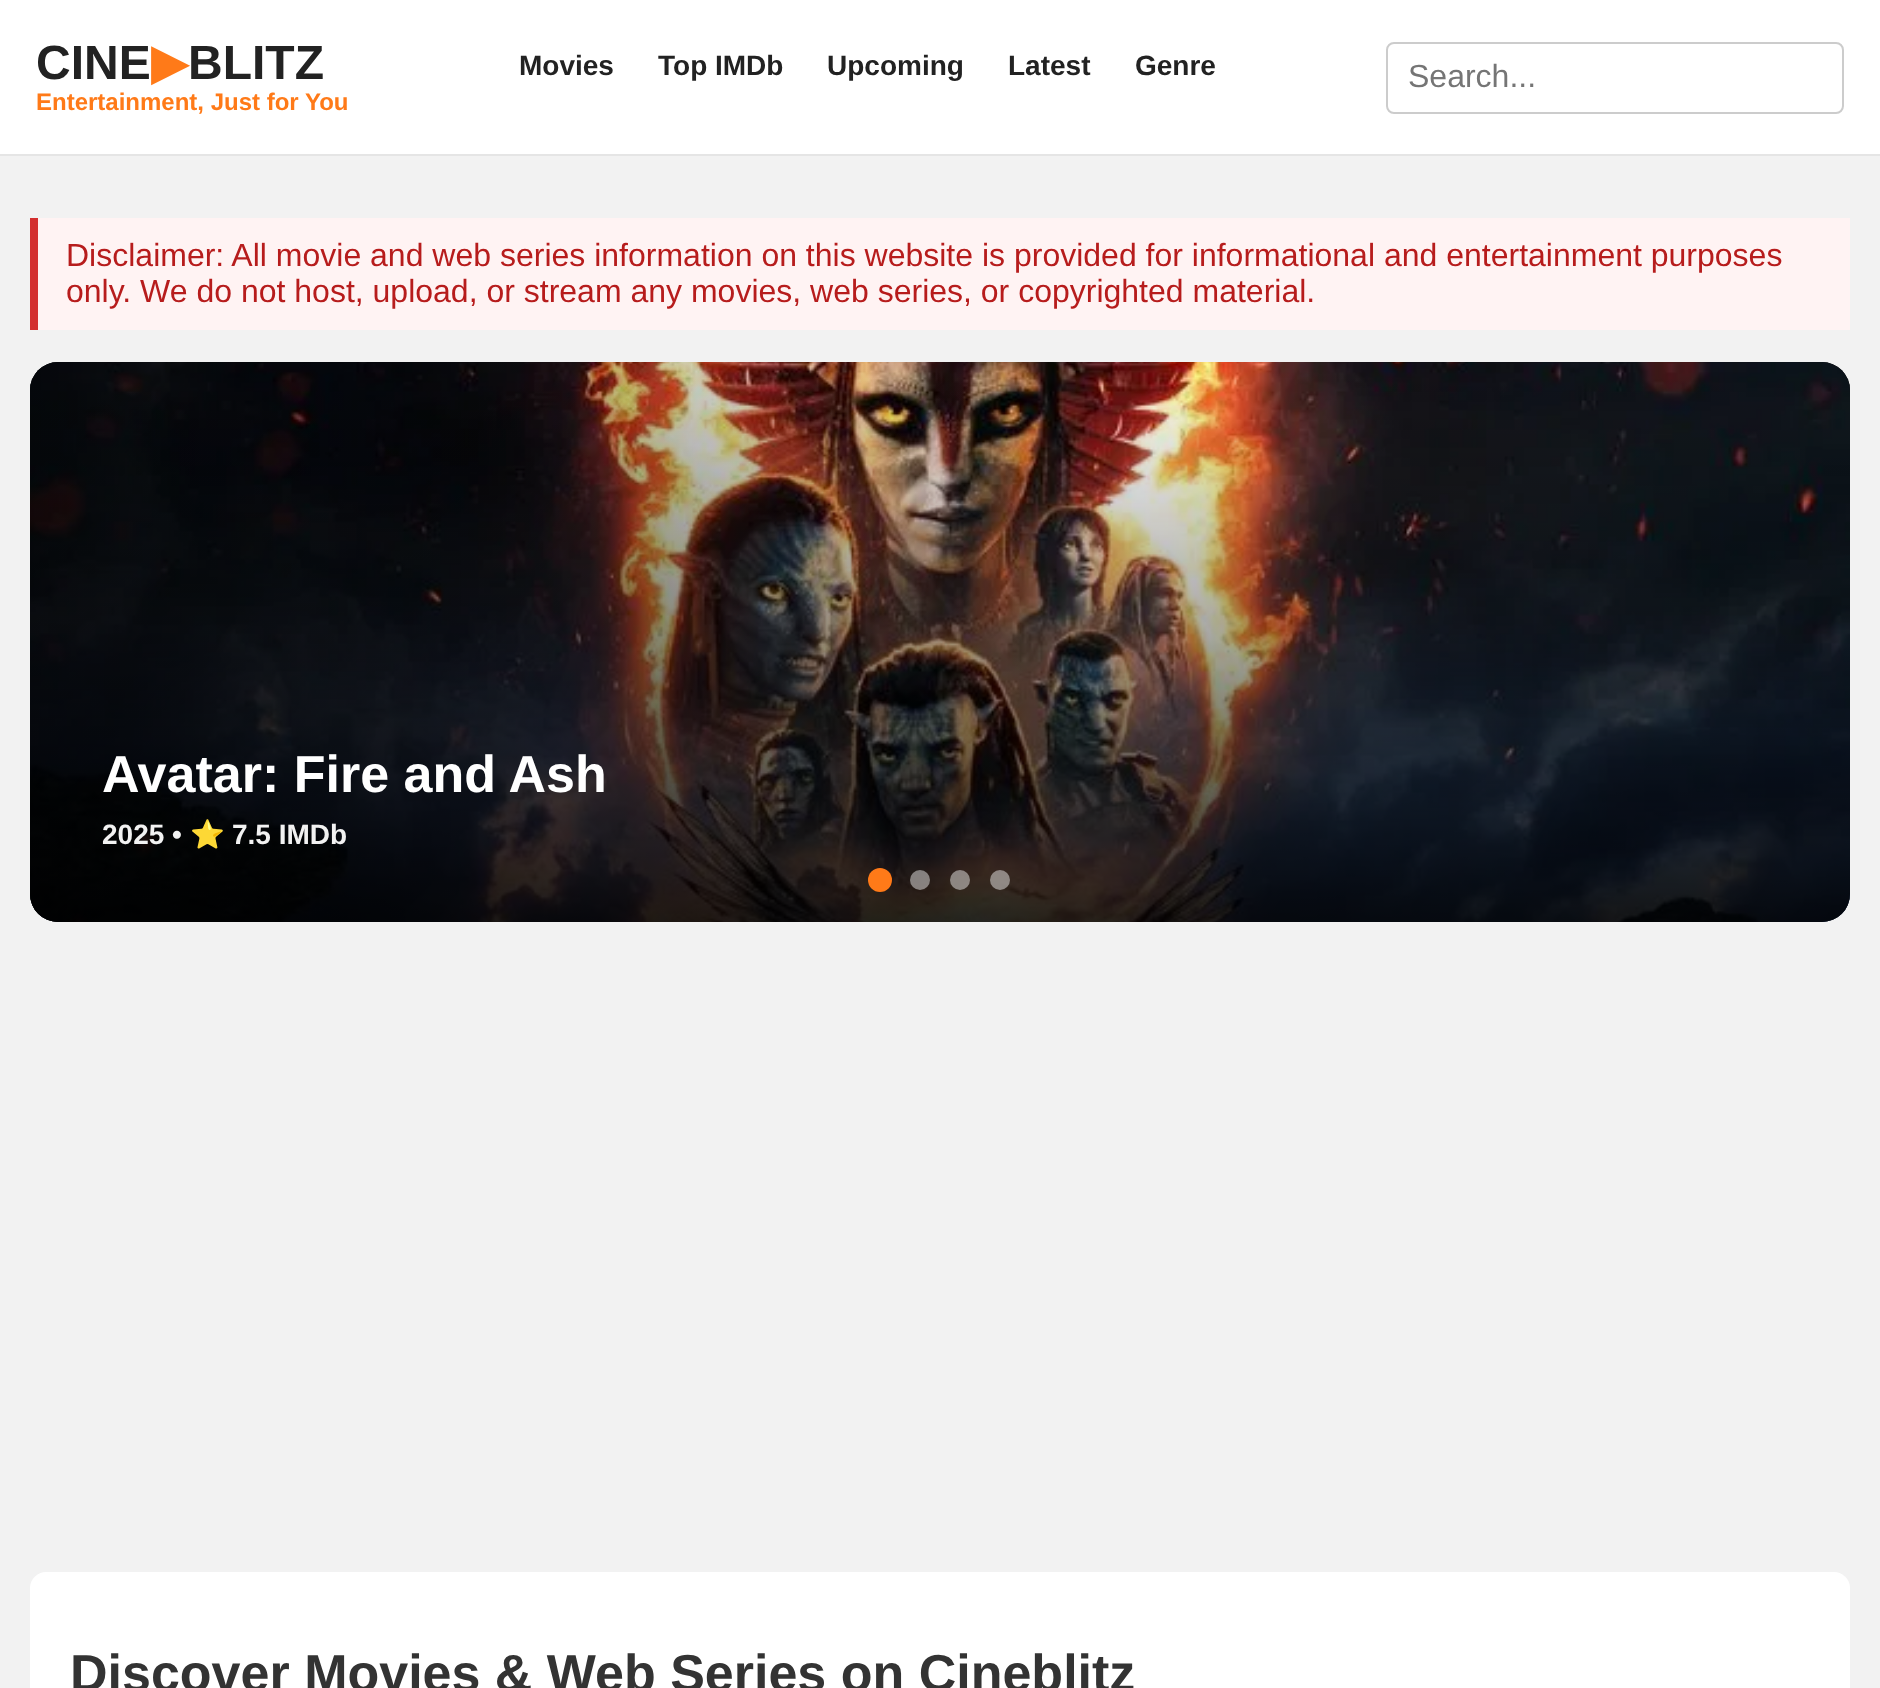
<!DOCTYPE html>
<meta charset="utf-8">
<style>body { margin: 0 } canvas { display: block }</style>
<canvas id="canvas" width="1880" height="1688"></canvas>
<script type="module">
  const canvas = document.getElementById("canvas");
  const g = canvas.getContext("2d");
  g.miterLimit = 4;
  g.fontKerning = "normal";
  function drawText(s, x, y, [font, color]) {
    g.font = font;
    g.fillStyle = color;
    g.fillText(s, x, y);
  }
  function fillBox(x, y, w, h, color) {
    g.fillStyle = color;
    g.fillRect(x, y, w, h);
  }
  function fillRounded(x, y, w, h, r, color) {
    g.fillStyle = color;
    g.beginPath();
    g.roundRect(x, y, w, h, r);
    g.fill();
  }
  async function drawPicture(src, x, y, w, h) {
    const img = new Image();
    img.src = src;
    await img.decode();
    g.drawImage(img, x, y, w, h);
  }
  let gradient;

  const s1 = ["bold 48px Liberation Sans", "#222222"];
  const s2 = ["bold 48px DejaVu Sans", "#FF7A18"];
  const s3 = ["bold 24px Liberation Sans", "#FF7A18"];
  const s4 = ["bold 28px Liberation Sans", "#222222"];
  const s5 = ["32px Liberation Sans", "#757575"];
  const s6 = ["32px Liberation Sans", "#B71C1C"];
  const s7 = ["bold 52px Liberation Sans", "#FFFFFF"];
  const s8 = ["bold 28px Liberation Sans", "#F2F2F2"];
  const s9 = ["bold 28px Noto Color Emoji", "#F2F2F2"];
  const s10 = ["bold 52px Liberation Sans", "#333333"];

  fillBox(0, 0, 1880, 1688, "#F2F2F2");
  fillBox(0, 0, 1880, 154, "#FFFFFF");
  fillBox(0, 154, 1880, 2, "#E5E5E5");
  drawText("CINE", 36, 79, s1);
  drawText("▶", 151, 79, s2);
  drawText("BLITZ", 188, 79, s1);
  drawText("Entertainment, Just for You", 36, 110, s3);
  drawText("Movies", 519, 75, s4);
  drawText("Top IMDb", 658, 75, s4);
  drawText("Upcoming", 827, 75, s4);
  drawText("Latest", 1008, 75, s4);
  drawText("Genre", 1135, 75, s4);
  g.beginPath();
  g.roundRect(1387, 43, 456, 70, 7);
  g.strokeStyle = "#CCCCCC";
  g.lineWidth = 2;
  g.stroke();
  drawText("Search...", 1408, 87, s5);
  fillBox(38, 218, 1812, 112, "#FFF3F3");
  fillBox(30, 218, 8, 112, "#D32F2F");
  drawText("Disclaimer: All movie and web series information on this website is provided for informational and entertainment purposes", 66, 266, s6);
  drawText("only. We do not host, upload, or stream any movies, web series, or copyrighted material.", 66, 302, s6);
  fillRounded(30, 362, 1820, 560, 28, "#000000");
  await drawPicture("pic1.png", 30, 362, 1820, 560);
  gradient = g.createLinearGradient(30, 642, 1850, 642);
  gradient.addColorStop(0, "rgba(0, 0, 0, 0.55)");
  gradient.addColorStop(0.55, "rgba(0, 0, 0, 0)");
  g.fillStyle = gradient;
  g.beginPath();
  g.roundRect(30, 362, 1820, 560, 28);
  g.fill();
  gradient = g.createLinearGradient(940, 922, 940, 362);
  gradient.addColorStop(0, "rgba(0, 0, 0, 0.85)");
  gradient.addColorStop(0.5, "rgba(0, 0, 0, 0.35)");
  gradient.addColorStop(1, "rgba(0, 0, 0, 0)");
  g.fillStyle = gradient;
  g.beginPath();
  g.roundRect(30, 362, 1820, 560, 28);
  g.fill();
  drawText("Avatar: Fire and Ash", 102, 792, s7);
  drawText("2025 •", 102, 844, s8);
  drawText("⭐", 190, 844, s9);
  drawText("7.5 IMDb", 232, 844, s8);
  g.fillStyle = "#FF7A18";
  g.beginPath();
  g.arc(880, 880, 12, 0, Math.PI * 2);
  g.fill();
  g.fillStyle = "rgba(255, 255, 255, 0.45)";
  g.beginPath();
  g.arc(920, 880, 10, 0, Math.PI * 2);
  g.fill();
  g.beginPath();
  g.arc(960, 880, 10, 0, Math.PI * 2);
  g.fill();
  g.beginPath();
  g.arc(1000, 880, 10, 0, Math.PI * 2);
  g.fill();
  fillRounded(30, 1572, 1820, 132, 16, "#FFFFFF");
  drawText("Discover Movies & Web Series on Cineblitz", 70, 1691, s10);
</script>
